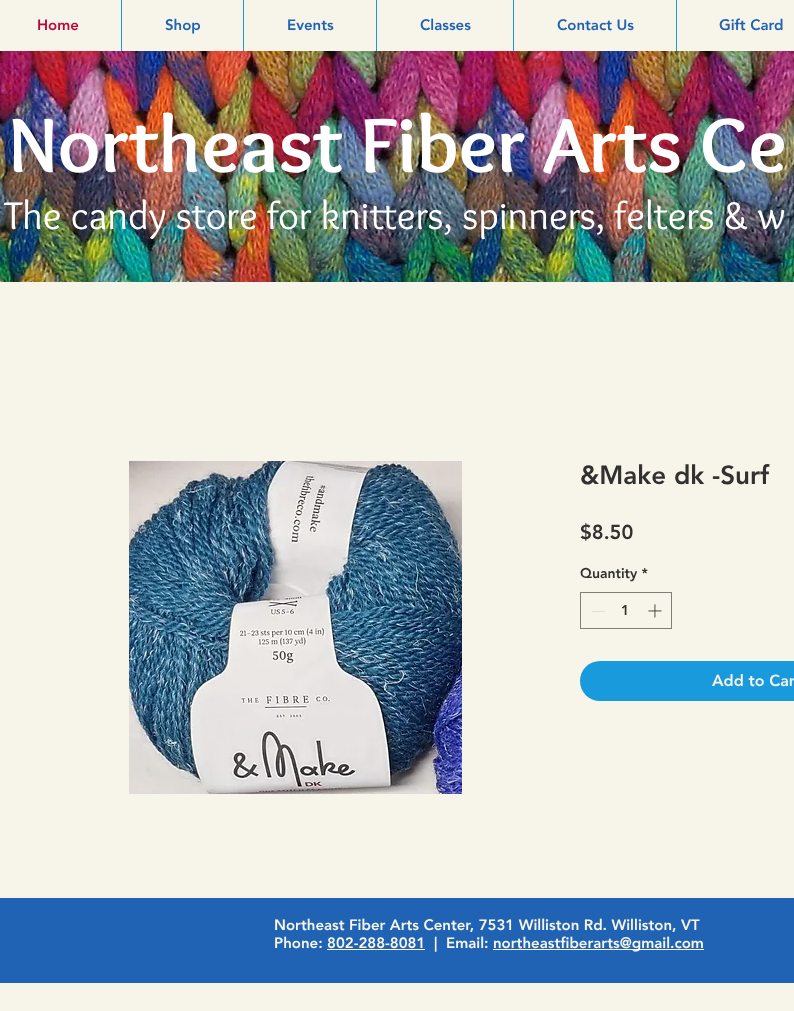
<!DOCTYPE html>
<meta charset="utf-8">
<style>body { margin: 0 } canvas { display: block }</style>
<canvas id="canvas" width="794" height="1011"></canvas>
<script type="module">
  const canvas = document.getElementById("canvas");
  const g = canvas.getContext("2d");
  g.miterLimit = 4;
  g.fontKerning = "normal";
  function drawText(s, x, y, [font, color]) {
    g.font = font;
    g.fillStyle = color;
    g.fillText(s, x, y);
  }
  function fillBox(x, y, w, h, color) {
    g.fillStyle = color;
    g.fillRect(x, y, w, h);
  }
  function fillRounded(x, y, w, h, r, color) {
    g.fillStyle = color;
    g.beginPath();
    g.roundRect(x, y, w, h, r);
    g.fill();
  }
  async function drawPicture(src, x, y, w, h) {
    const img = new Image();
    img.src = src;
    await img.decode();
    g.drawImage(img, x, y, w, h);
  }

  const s1 = ["900 15px 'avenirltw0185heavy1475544'", "#BB073E"];
  const s2 = ["900 15px 'avenirltw0185heavy1475544'", "#2062B4"];
  const s3 = ["bold 80px Overlock", "#FFFFFF"];
  const s4 = ["40px Overlock", "#FFFFFF"];
  const s5 = ["900 26px 'avenirltw0185heavy1475544'", "#31312F"];
  const s6 = ["900 20px 'avenirltw0185heavy1475544'", "#31312F"];
  const s7 = ["900 14px 'avenirltw0185heavy1475544'", "#31312F"];
  const s8 = ["900 16px 'avenirltw0185heavy1475544'", "#F7F5E9"];
  const s9 = ["900 15px 'avenirltw0185heavy1475544'", "#F7F5E9"];

  fillBox(0, 0, 794, 1011, "#F7F5E9");
  drawText("Home", 37, 30, s1);
  fillBox(121, 0, 1, 51, "#199ADC");
  drawText("Shop", 165, 30, s2);
  fillBox(243, 0, 1, 51, "#199ADC");
  drawText("Events", 287, 30, s2);
  fillBox(376, 0, 1, 51, "#199ADC");
  drawText("Classes", 420, 30, s2);
  fillBox(513, 0, 1, 51, "#199ADC");
  drawText("Contact Us", 557, 30, s2);
  fillBox(676, 0, 1, 51, "#199ADC");
  drawText("Gift Card", 719, 30, s2);
  await drawPicture("pic1.png", 0, 51, 794, 231);
  drawText("Northeast Fiber Arts Ce", 8, 172, s3);
  drawText("The candy store for knitters, spinners, felters & w", 4, 229, s4);
  await drawPicture("pic2.png", 129, 461, 333, 333);
  drawText("&Make dk -Surf", 580, 484, s5);
  drawText("$8.50", 580, 539, s6);
  drawText("Quantity *", 580, 578, s7);
  g.strokeStyle = "#807F79";
  g.strokeRect(580.5, 592.5, 91, 36);
  fillBox(592, 611, 13, 1, "#DFDED8");
  drawText("1", 621, 615, s7);
  await drawPicture("pic3.png", 648, 604, 14, 14);
  fillRounded(580, 661, 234, 40, 20, "#199ADC");
  drawText("Add to Car", 712, 686, s8);
  fillBox(0, 898, 794, 85, "#2062B4");
  drawText("Northeast Fiber Arts Center, 7531 Williston Rd. Williston, VT", 274, 930, s9);
  drawText("Phone: 802-288-8081", 274, 948, s9);
  fillBox(327, 949, 98, 1, "#F7F5E9");
  drawText("|", 434, 948, s9);
  drawText("Email:", 446, 948, s9);
  fillBox(493, 949, 211, 1, "#F7F5E9");
  drawText("northeastfiberarts@gmail.com", 493, 948, s9);
</script>
